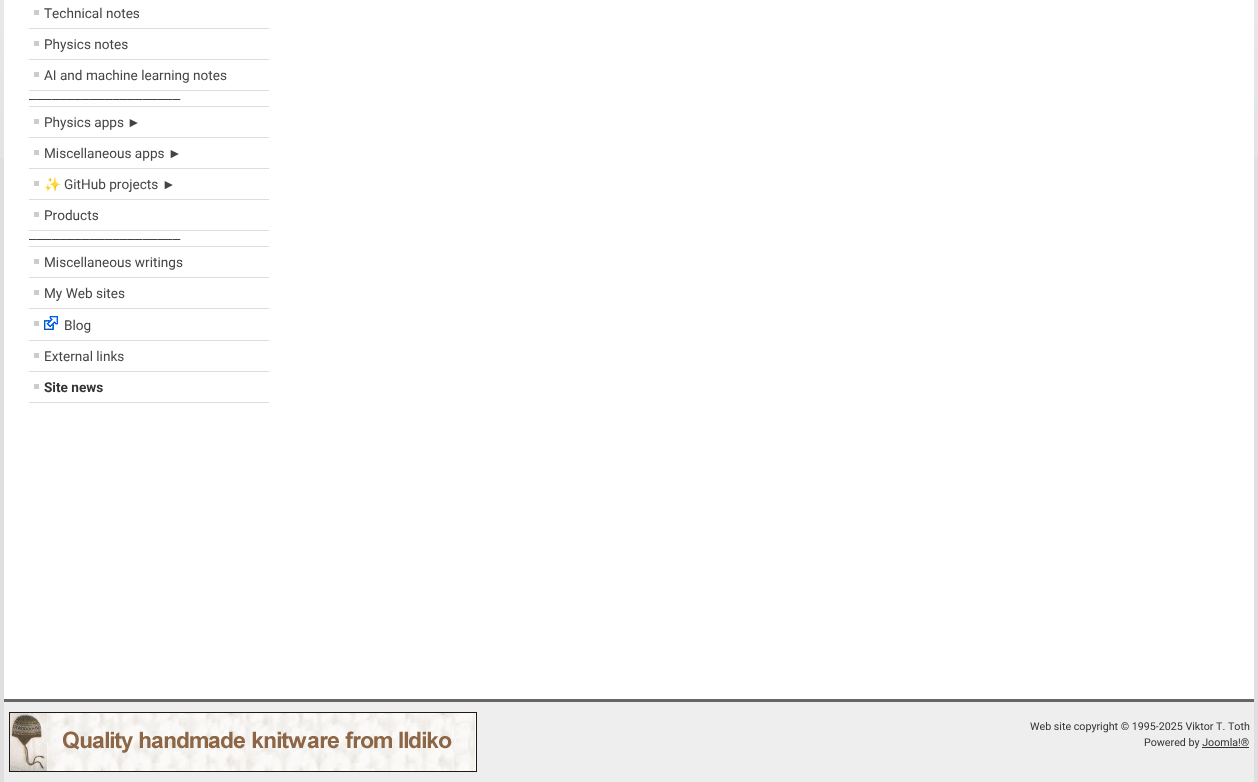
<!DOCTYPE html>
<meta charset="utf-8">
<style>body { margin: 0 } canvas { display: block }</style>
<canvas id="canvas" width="1258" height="782"></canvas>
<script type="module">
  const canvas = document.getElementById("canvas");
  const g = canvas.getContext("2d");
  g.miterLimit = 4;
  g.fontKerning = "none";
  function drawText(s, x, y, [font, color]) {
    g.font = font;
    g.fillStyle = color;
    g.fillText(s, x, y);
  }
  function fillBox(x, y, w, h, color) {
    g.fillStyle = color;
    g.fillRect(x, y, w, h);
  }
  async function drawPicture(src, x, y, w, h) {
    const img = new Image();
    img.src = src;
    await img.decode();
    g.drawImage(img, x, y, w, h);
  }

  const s1 = ["13.6px Roboto", "#444444"];
  const s2 = ["13.6px Liberation Sans", "#333333"];
  const s3 = ["13.6px Liberation Sans", "#444444"];
  const s4 = ["13.6px Noto Color Emoji", "#444444"];
  const s5 = ["bold 13.6px Roboto", "#333333"];
  const s6 = ["10.7px Roboto", "#333333"];

  fillBox(0, 0, 1258, 782, "#E0DEDF");
  await drawPicture("pic1.png", 0, 0, 1258, 158);
  fillBox(4, 0, 1250, 699, "#FFFFFF");
  fillBox(29, 28, 240, 1, "#DDDDDD");
  fillBox(34, 10, 5, 5, "#CCCCCC");
  drawText("Technical notes", 44, 18, s1);
  fillBox(29, 59, 240, 1, "#DDDDDD");
  fillBox(34, 41, 5, 5, "#CCCCCC");
  drawText("Physics notes", 44, 49, s1);
  fillBox(29, 90, 240, 1, "#DDDDDD");
  fillBox(34, 72, 5, 5, "#CCCCCC");
  drawText("AI and machine learning notes", 44, 80, s1);
  fillBox(29, 106, 240, 1, "#DDDDDD");
  drawText("––––––––––––––––––––", 29, 103, s2);
  fillBox(29, 137, 240, 1, "#DDDDDD");
  fillBox(34, 119, 5, 5, "#CCCCCC");
  drawText("Physics apps", 44, 127, s1);
  drawText("►", 127, 127, s3);
  fillBox(29, 168, 240, 1, "#DDDDDD");
  fillBox(34, 150, 5, 5, "#CCCCCC");
  drawText("Miscellaneous apps", 44, 158, s1);
  drawText("►", 168, 158, s3);
  fillBox(29, 199, 240, 1, "#DDDDDD");
  fillBox(34, 181, 5, 5, "#CCCCCC");
  drawText("✨", 44, 189, s4);
  drawText("GitHub projects", 64, 189, s1);
  drawText("►", 162, 189, s3);
  fillBox(29, 230, 240, 1, "#DDDDDD");
  fillBox(34, 212, 5, 5, "#CCCCCC");
  drawText("Products", 44, 220, s1);
  fillBox(29, 246, 240, 1, "#DDDDDD");
  drawText("––––––––––––––––––––", 29, 243, s2);
  fillBox(29, 277, 240, 1, "#DDDDDD");
  fillBox(34, 259, 5, 5, "#CCCCCC");
  drawText("Miscellaneous writings", 44, 267, s1);
  fillBox(29, 308, 240, 1, "#DDDDDD");
  fillBox(34, 290, 5, 5, "#CCCCCC");
  drawText("My Web sites", 44, 298, s1);
  fillBox(29, 340, 240, 1, "#DDDDDD");
  fillBox(34, 321, 5, 5, "#CCCCCC");
  await drawPicture("pic2.png", 44, 316, 14, 14);
  drawText("Blog", 64, 330, s1);
  fillBox(29, 371, 240, 1, "#DDDDDD");
  fillBox(34, 353, 5, 5, "#CCCCCC");
  drawText("External links", 44, 361, s1);
  fillBox(29, 402, 240, 1, "#DDDDDD");
  fillBox(34, 384, 5, 5, "#CCCCCC");
  drawText("Site news", 44, 392, s5);
  fillBox(4, 702, 1250, 80, "#EEEEEE");
  fillBox(4, 699, 1250, 3, "#666666");
  await drawPicture("pic3.png", 9, 712, 468, 60);
  drawText("Web site copyright © 1995-2025 Viktor T. Toth", 1030, 730, s6);
  drawText("Powered by Joomla!®", 1144, 746, s6);
  fillBox(1202, 747, 47, 1, "#333333");
</script>
